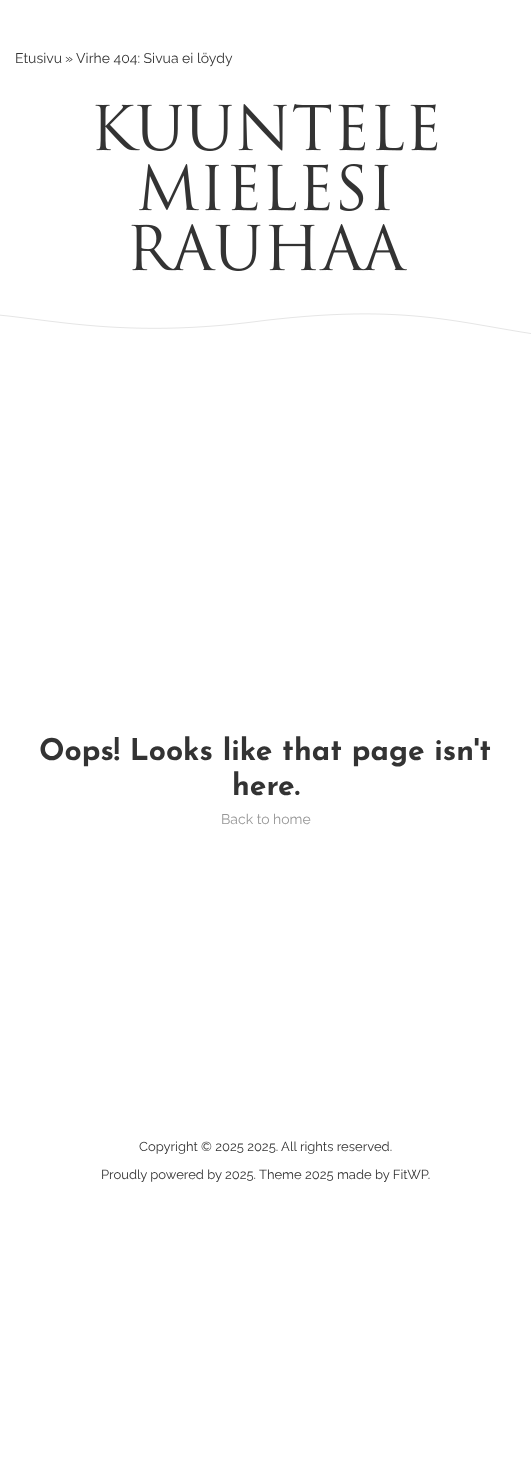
<!DOCTYPE html>
<meta charset="utf-8">
<style>body { margin: 0 } canvas { display: block }</style>
<canvas id="canvas" width="531" height="1459"></canvas>
<script type="module">
  const canvas = document.getElementById("canvas");
  const g = canvas.getContext("2d");
  g.miterLimit = 4;
  g.fontKerning = "normal";
  function drawText(s, x, y, [font, color]) {
    g.font = font;
    g.fillStyle = color;
    g.fillText(s, x, y);
  }
  function fillBox(x, y, w, h, color) {
    g.fillStyle = color;
    g.fillRect(x, y, w, h);
  }
  async function drawPicture(src, x, y, w, h) {
    const img = new Image();
    img.src = src;
    await img.decode();
    g.drawImage(img, x, y, w, h);
  }

  const s1 = ["14px Raleway", "#333333"];
  const s2 = ["bold 30px Josefin Sans", "#333333"];
  const s3 = ["14px Raleway", "#979797"];
  const s4 = ["13px Raleway", "#333333"];

  fillBox(0, 0, 531, 1459, "#FFFFFF");
  await drawPicture("pic1.png", 0, 313, 531, 21);
  drawText("Etusivu", 15, 63, s1);
  drawText("» Virhe 404: Sivua ei löydy", 65, 63, s1);
  await drawPicture("pic2.png", 95, 104, 343, 47);
  await drawPicture("pic3.png", 139, 164, 251, 47);
  await drawPicture("pic4.png", 131, 224, 276, 47);
  drawText("Oops! Looks like that page isn't", 39, 760, s2);
  drawText("here.", 232, 795, s2);
  drawText("Back to home", 221, 824, s3);
  drawText("Copyright © 2025 2025. All rights reserved.", 139, 1151, s4);
  drawText("Proudly powered by 2025. Theme 2025 made by FitWP.", 101, 1179, s4);
</script>
